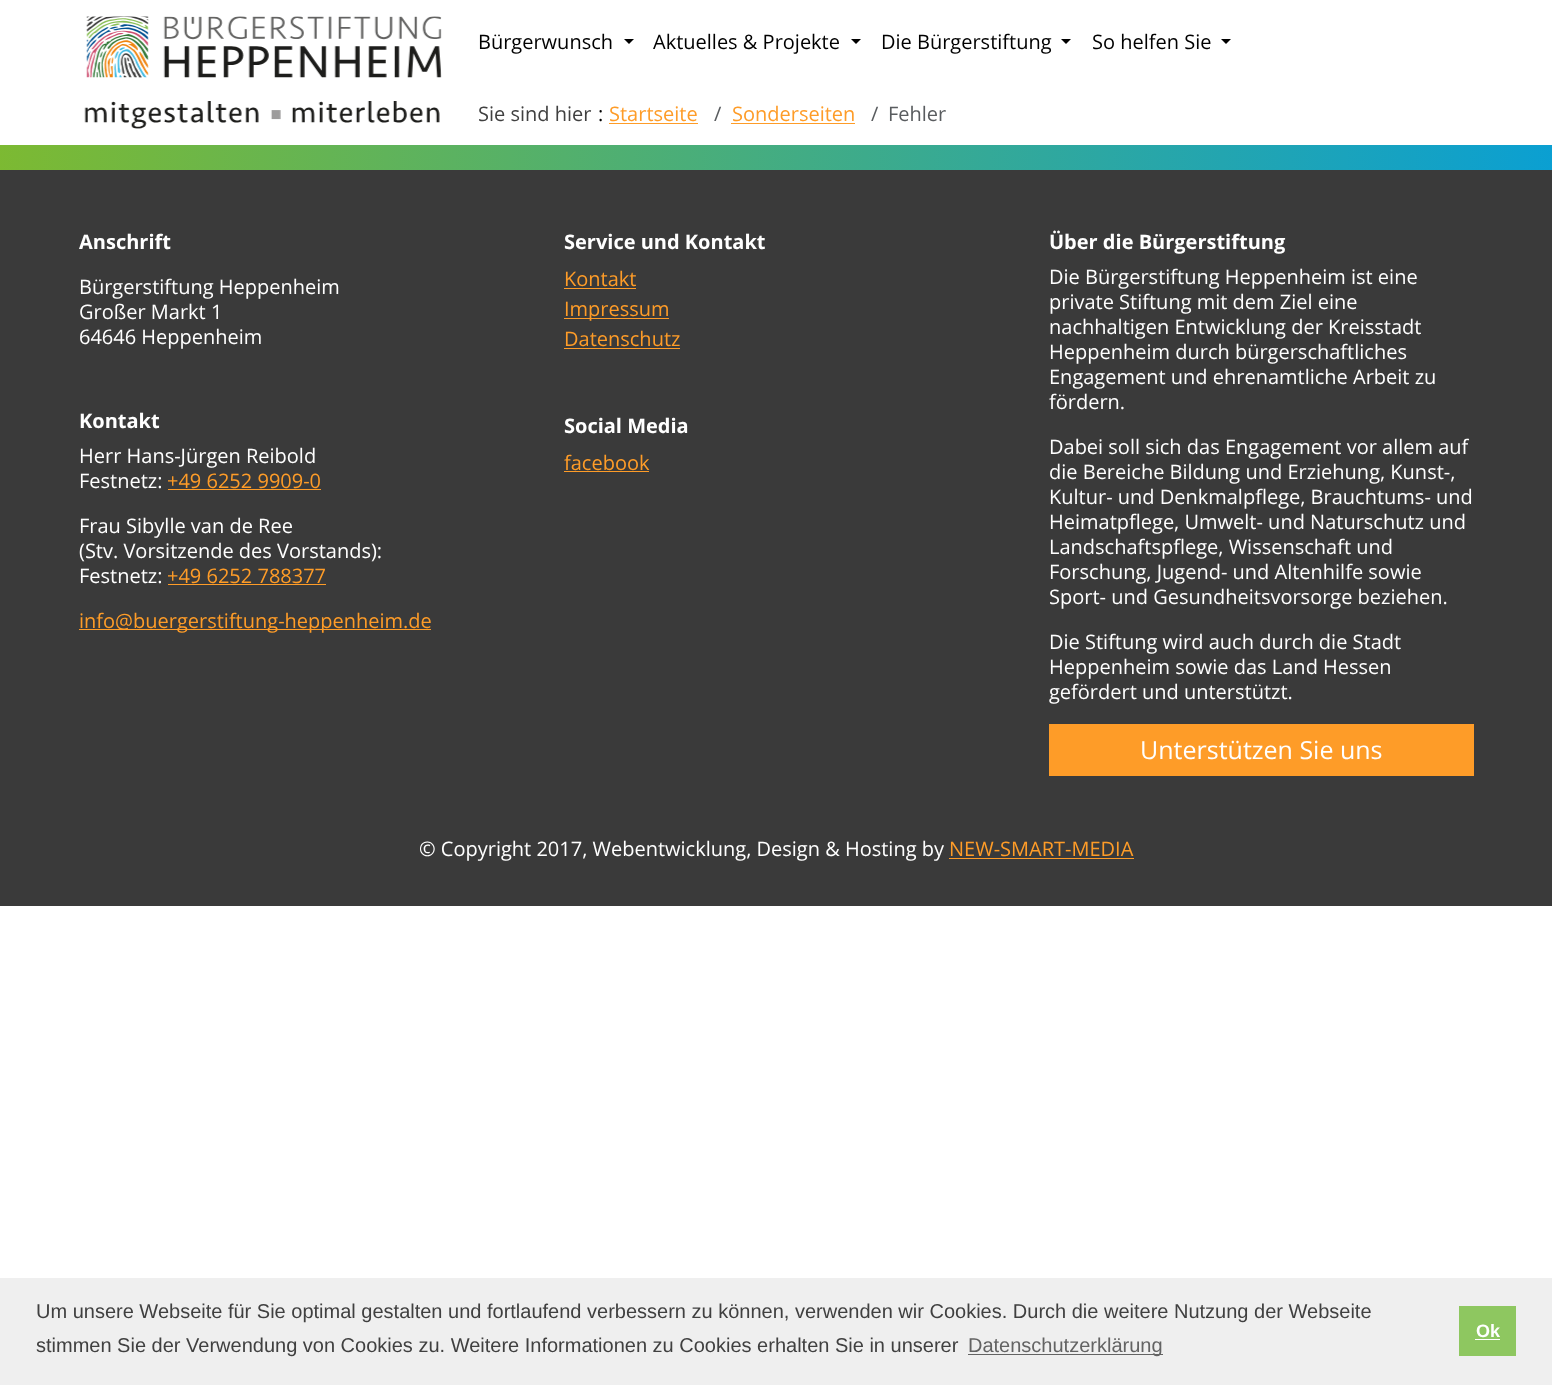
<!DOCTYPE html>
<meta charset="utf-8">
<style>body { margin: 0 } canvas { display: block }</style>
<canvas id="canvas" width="1552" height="1385"></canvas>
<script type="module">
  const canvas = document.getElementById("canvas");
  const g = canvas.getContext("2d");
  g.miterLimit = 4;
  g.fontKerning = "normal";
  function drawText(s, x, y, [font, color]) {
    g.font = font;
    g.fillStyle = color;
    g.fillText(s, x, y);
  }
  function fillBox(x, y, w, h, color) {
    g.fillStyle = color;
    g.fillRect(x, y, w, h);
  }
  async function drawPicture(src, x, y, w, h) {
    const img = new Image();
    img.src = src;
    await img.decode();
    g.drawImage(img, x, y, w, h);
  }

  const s1 = ["20px Open Sans", "#000000"];
  const s2 = ["20px Open Sans", "#404040"];
  const s3 = ["20px Open Sans", "#FE9C28"];
  const s4 = ["20px Open Sans", "#595C5F"];
  const s5 = ["bold 20px Open Sans", "#FFFFFF"];
  const s6 = ["20px Open Sans", "#FFFFFF"];
  const s7 = ["25px Open Sans", "#FFFFFF"];
  const s8 = ["20px Liberation Sans", "#404040"];
  const s9 = ["20px Liberation Sans", "#636363"];
  const s10 = ["bold 18px Liberation Sans", "#FFFFFF"];

  fillBox(0, 0, 1552, 1385, "#FFFFFF");
  await drawPicture("pic1.png", 0, 145, 1552, 25);
  await drawPicture("pic2.png", 84, 16, 358, 113);
  drawText("Bürgerwunsch", 478, 49, s1);
  g.beginPath();
  g.moveTo(624, 39);
  g.lineTo(634, 39);
  g.lineTo(629, 44);
  g.closePath();
  g.fill();
  drawText("Aktuelles & Projekte", 653, 49, s1);
  g.beginPath();
  g.moveTo(851, 39);
  g.lineTo(861, 39);
  g.lineTo(856, 44);
  g.closePath();
  g.fill();
  drawText("Die Bürgerstiftung", 881, 49, s1);
  g.beginPath();
  g.moveTo(1061, 39);
  g.lineTo(1071, 39);
  g.lineTo(1066, 44);
  g.closePath();
  g.fill();
  drawText("So helfen Sie", 1092, 49, s1);
  g.beginPath();
  g.moveTo(1221, 39);
  g.lineTo(1231, 39);
  g.lineTo(1226, 44);
  g.closePath();
  g.fill();
  drawText("Sie sind hier", 478, 121, s2);
  drawText(":", 598, 121, s1);
  drawText("Startseite", 609, 121, s3);
  fillBox(609, 123, 89, 1, "#FE9C28");
  drawText("/", 714, 121, s4);
  drawText("Sonderseiten", 732, 121, s3);
  fillBox(731, 123, 124, 1, "#FE9C28");
  drawText("/", 871, 121, s4);
  drawText("Fehler", 888, 121, s4);
  fillBox(0, 170, 1552, 736, "#3A3A3A");
  drawText("Anschrift", 79, 249, s5);
  drawText("Bürgerstiftung Heppenheim", 79, 294, s6);
  drawText("Großer Markt 1", 79, 319, s6);
  drawText("64646 Heppenheim", 79, 344, s6);
  drawText("Kontakt", 79, 428, s5);
  drawText("Herr Hans-Jürgen Reibold", 79, 463, s6);
  drawText("Festnetz:", 79, 488, s6);
  drawText("+49 6252 9909-0", 167, 488, s3);
  fillBox(168, 489, 153, 1, "#FE9C28");
  drawText("Frau Sibylle van de Ree", 79, 533, s6);
  drawText("(Stv. Vorsitzende des Vorstands):", 79, 558, s6);
  drawText("Festnetz:", 79, 583, s6);
  drawText("+49 6252 788377", 167, 583, s3);
  fillBox(168, 584, 158, 1, "#FE9C28");
  fillBox(79, 629, 352, 1, "#FE9C28");
  drawText("info@buergerstiftung-heppenheim.de", 79, 628, s3);
  drawText("Service und Kontakt", 564, 249, s5);
  drawText("Kontakt", 564, 286, s3);
  fillBox(564, 288, 72, 1, "#FE9C28");
  fillBox(564, 318, 105, 1, "#FE9C28");
  drawText("Impressum", 564, 316, s3);
  drawText("Datenschutz", 564, 346, s3);
  fillBox(564, 348, 116, 1, "#FE9C28");
  drawText("Social Media", 564, 433, s5);
  drawText("facebook", 564, 470, s3);
  fillBox(564, 471, 85, 1, "#FE9C28");
  drawText("Über die Bürgerstiftung", 1049, 249, s5);
  drawText("Die Bürgerstiftung Heppenheim ist eine", 1049, 284, s6);
  drawText("private Stiftung mit dem Ziel eine", 1049, 309, s6);
  drawText("nachhaltigen Entwicklung der Kreisstadt", 1049, 334, s6);
  drawText("Heppenheim durch bürgerschaftliches", 1049, 359, s6);
  drawText("Engagement und ehrenamtliche Arbeit zu", 1049, 384, s6);
  drawText("fördern.", 1049, 409, s6);
  drawText("Dabei soll sich das Engagement vor allem auf", 1049, 454, s6);
  drawText("die Bereiche Bildung und Erziehung, Kunst-,", 1049, 479, s6);
  drawText("Kultur- und Denkmalpflege, Brauchtums- und", 1049, 504, s6);
  drawText("Heimatpflege, Umwelt- und Naturschutz und", 1049, 529, s6);
  drawText("Landschaftspflege, Wissenschaft und", 1049, 554, s6);
  drawText("Forschung, Jugend- und Altenhilfe sowie", 1049, 579, s6);
  drawText("Sport- und Gesundheitsvorsorge beziehen.", 1049, 604, s6);
  drawText("Die Stiftung wird auch durch die Stadt", 1049, 649, s6);
  drawText("Heppenheim sowie das Land Hessen", 1049, 674, s6);
  drawText("gefördert und unterstützt.", 1049, 699, s6);
  fillBox(1049, 724, 425, 52, "#FE9C28");
  drawText("Unterstützen Sie uns", 1140, 759, s7);
  drawText("© Copyright 2017, Webentwicklung, Design & Hosting by", 419, 856, s6);
  drawText("NEW-SMART-MEDIA", 949, 856, s3);
  fillBox(949, 858, 185, 1, "#FE9C28");
  fillBox(0, 1278, 1552, 107, "#EFEFEF");
  drawText("Um unsere Webseite für Sie optimal gestalten und fortlaufend verbessern zu können, verwenden wir Cookies. Durch die weitere Nutzung der Webseite", 36, 1318, s8);
  drawText("stimmen Sie der Verwendung von Cookies zu. Weitere Informationen zu Cookies erhalten Sie in unserer", 36, 1352, s8);
  fillBox(968, 1354, 195, 1, "#636363");
  drawText("Datenschutzerklärung", 968, 1352, s9);
  fillBox(1459, 1306, 57, 50, "#8EC760");
  drawText("Ok", 1476, 1337, s10);
  fillBox(1475, 1339, 25, 1, "#FFFFFF");
</script>
